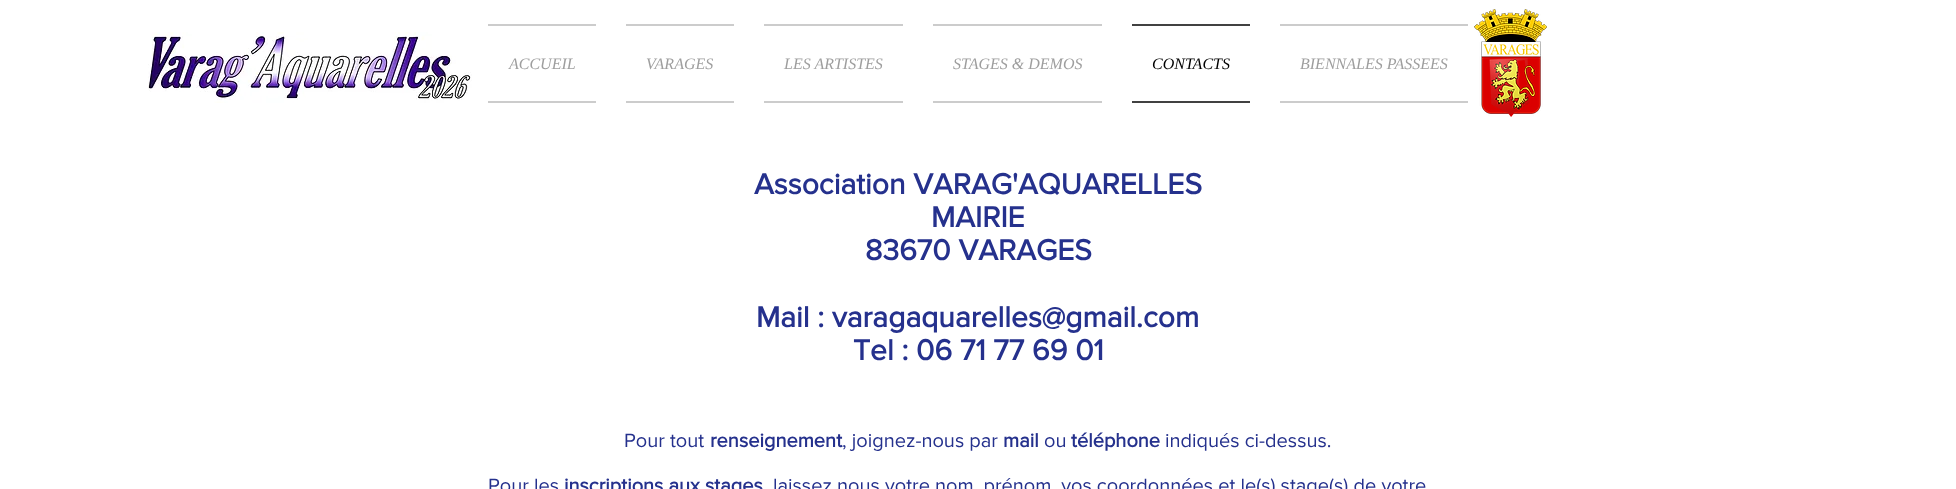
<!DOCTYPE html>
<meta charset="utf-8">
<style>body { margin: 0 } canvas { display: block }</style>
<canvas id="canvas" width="1956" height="489"></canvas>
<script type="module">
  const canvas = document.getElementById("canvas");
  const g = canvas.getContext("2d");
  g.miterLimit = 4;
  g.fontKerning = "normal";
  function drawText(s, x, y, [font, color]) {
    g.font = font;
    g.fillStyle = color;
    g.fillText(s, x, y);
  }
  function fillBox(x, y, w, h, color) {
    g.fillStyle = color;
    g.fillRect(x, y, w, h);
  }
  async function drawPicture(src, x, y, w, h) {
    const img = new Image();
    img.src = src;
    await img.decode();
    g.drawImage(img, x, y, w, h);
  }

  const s1 = ["italic 16px Liberation Serif", "#9E9E9E"];
  const s2 = ["italic 16px Liberation Serif", "#000000"];
  const s3 = ["bold 30px 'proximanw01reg'", "#25318D"];
  const s4 = ["20px 'proximanw01reg'", "#25318D"];
  const s5 = ["bold 20px 'proximanw01reg'", "#25318D"];

  fillBox(0, 0, 1956, 489, "#FFFFFF");
  await drawPicture("pic1.png", 148, 32, 324, 71);
  fillBox(488, 24, 108, 2, "#CCCCCC");
  fillBox(488, 101, 108, 2, "#CCCCCC");
  drawText("ACCUEIL", 509, 69, s1);
  fillBox(626, 24, 108, 2, "#CCCCCC");
  fillBox(626, 101, 108, 2, "#CCCCCC");
  drawText("VARAGES", 646, 69, s1);
  fillBox(764, 24, 139, 2, "#CCCCCC");
  fillBox(764, 101, 139, 2, "#CCCCCC");
  drawText("LES ARTISTES", 784, 69, s1);
  fillBox(933, 24, 169, 2, "#CCCCCC");
  fillBox(933, 101, 169, 2, "#CCCCCC");
  drawText("STAGES & DEMOS", 953, 69, s1);
  fillBox(1132, 24, 118, 2, "#414141");
  fillBox(1132, 101, 118, 2, "#414141");
  drawText("CONTACTS", 1152, 69, s2);
  fillBox(1280, 24, 188, 2, "#CCCCCC");
  fillBox(1280, 101, 188, 2, "#CCCCCC");
  drawText("BIENNALES PASSEES", 1300, 69, s1);
  await drawPicture("pic2.png", 1474, 9, 73, 108);
  drawText("Association VARAG'AQUARELLES", 754, 194, s3);
  drawText("MAIRIE", 931, 227, s3);
  drawText("83670 VARAGES", 865, 260, s3);
  drawText("Mail : varagaquarelles@gmail.com", 756, 327, s3);
  drawText("Tel : 06 71 77 69 01", 853, 360, s3);
  drawText("Pour tout", 624, 447, s4);
  drawText("renseignement", 710, 447, s5);
  drawText(", joignez-nous par", 842, 447, s4);
  drawText("mail", 1003, 447, s5);
  drawText("ou", 1044, 447, s4);
  drawText("téléphone", 1071, 447, s5);
  drawText("indiqués ci-dessus.", 1165, 447, s4);
  drawText("Pour les", 488, 492, s4);
  drawText("inscriptions aux stages", 564, 492, s5);
  drawText("laissez nous votre nom, prénom, vos coordonnées et le(s) stage(s) de votre", 773, 492, s4);
</script>
